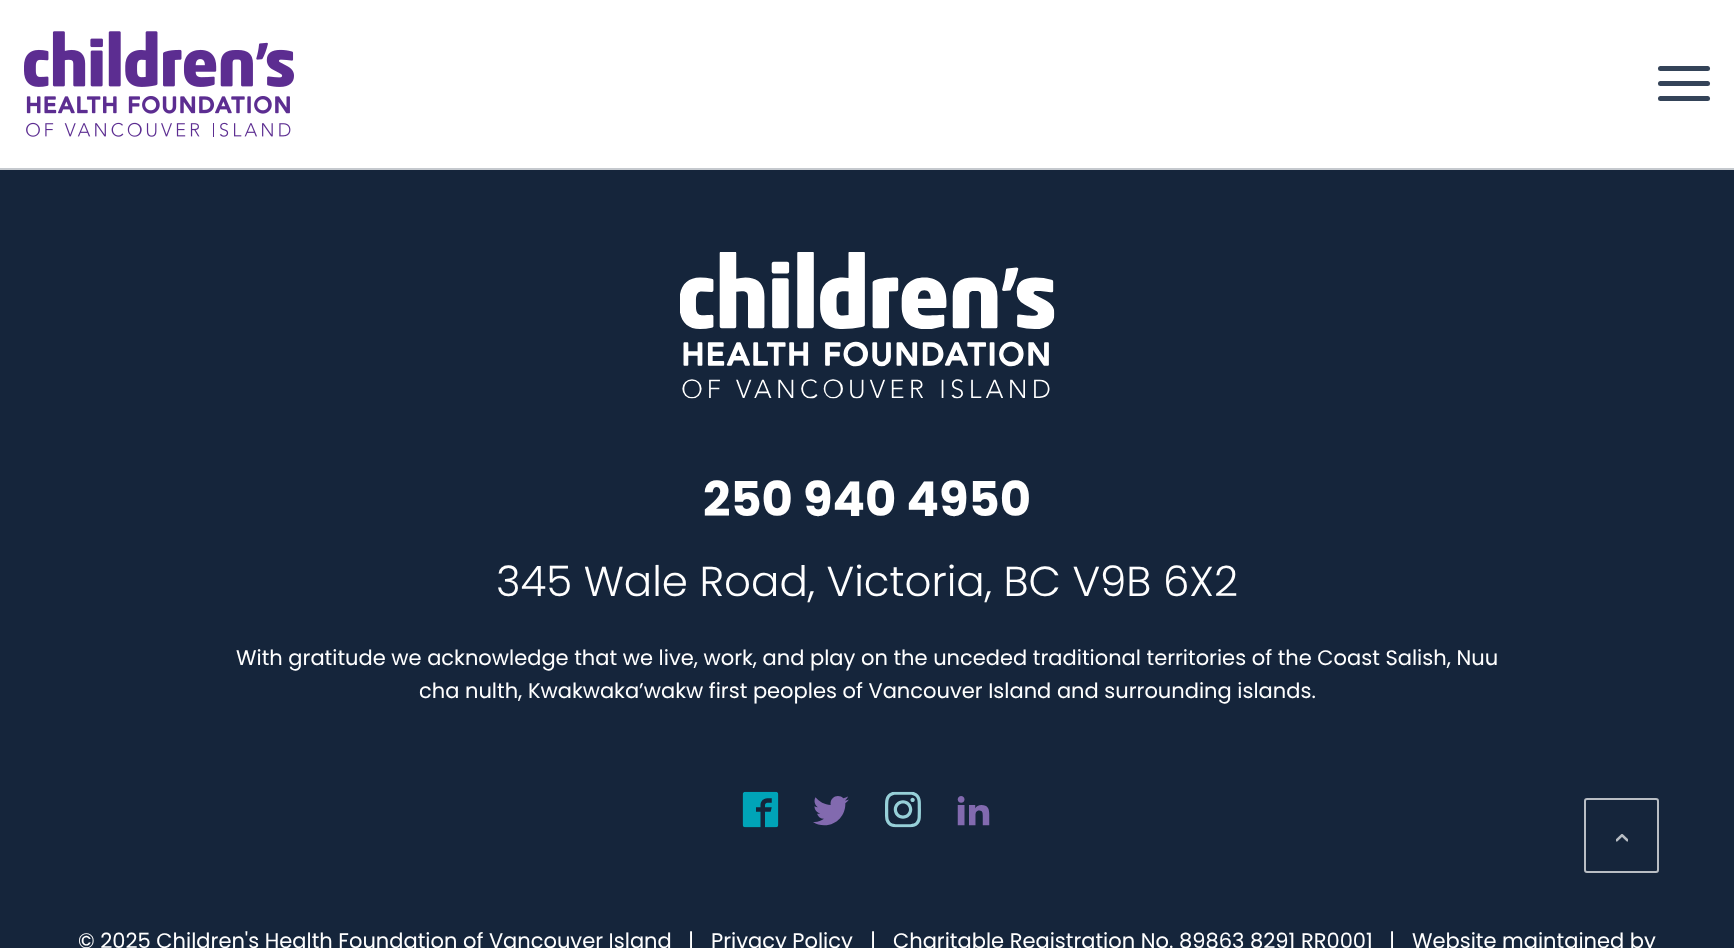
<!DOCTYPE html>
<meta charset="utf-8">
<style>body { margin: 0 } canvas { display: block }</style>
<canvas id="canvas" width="1734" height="948"></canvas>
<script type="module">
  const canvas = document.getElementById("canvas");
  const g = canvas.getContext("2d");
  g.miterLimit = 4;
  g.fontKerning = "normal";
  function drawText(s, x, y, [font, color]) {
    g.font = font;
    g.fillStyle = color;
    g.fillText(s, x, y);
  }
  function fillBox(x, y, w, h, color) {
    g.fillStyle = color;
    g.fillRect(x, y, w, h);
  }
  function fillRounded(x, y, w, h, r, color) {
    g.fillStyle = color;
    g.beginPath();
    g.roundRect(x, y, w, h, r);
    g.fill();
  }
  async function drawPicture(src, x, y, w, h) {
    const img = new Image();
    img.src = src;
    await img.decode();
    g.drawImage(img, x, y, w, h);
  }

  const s1 = ["bold 48px Poppins", "#FFFFFF"];
  const s2 = ["300 42px Poppins", "#FFFFFF"];
  const s3 = ["21px Poppins", "#FFFFFF"];

  fillBox(0, 0, 1734, 948, "#15253B");
  fillBox(0, 0, 1734, 168, "#FFFFFF");
  fillBox(0, 168, 1734, 2, "#C5C9CE");
  await drawPicture("pic1.png", 24, 31, 270, 106);
  fillRounded(1658, 81, 52, 5, 2.5, "#344358");
  fillRounded(1658, 66, 52, 5, 2.5, "#344358");
  fillRounded(1658, 96, 52, 5, 2.5, "#344358");
  await drawPicture("pic2.png", 680, 252, 375, 147);
  drawText("250 940 4950", 703, 516, s1);
  drawText("345 Wale Road, Victoria, BC V9B 6X2", 496, 596, s2);
  drawText("With gratitude we acknowledge that we live, work, and play on the unceded traditional territories of the Coast Salish, Nuu", 236, 665, s3);
  drawText("cha nulth, Kwakwaka’wakw first peoples of Vancouver Island and surrounding islands.", 419, 698, s3);
  await drawPicture("pic3.png", 742, 791, 37, 37);
  await drawPicture("pic4.png", 813, 796, 36, 30);
  await drawPicture("pic5.png", 885, 791, 36, 37);
  await drawPicture("pic6.png", 957, 796, 33, 30);
  drawText("© 2025 Children's Health Foundation of Vancouver Island", 78, 948, s3);
  drawText("|", 688, 948, s3);
  drawText("Privacy Policy", 711, 948, s3);
  drawText("|", 870, 948, s3);
  drawText("Charitable Registration No. 89863 8291 RR0001", 893, 948, s3);
  drawText("|", 1389, 948, s3);
  drawText("Website maintained by", 1412, 948, s3);
  g.beginPath();
  g.roundRect(1585, 799, 73, 73, 2);
  g.strokeStyle = "#B9BEC4";
  g.lineWidth = 2;
  g.stroke();
  await drawPicture("pic7.png", 1616, 834, 12, 8);
</script>
